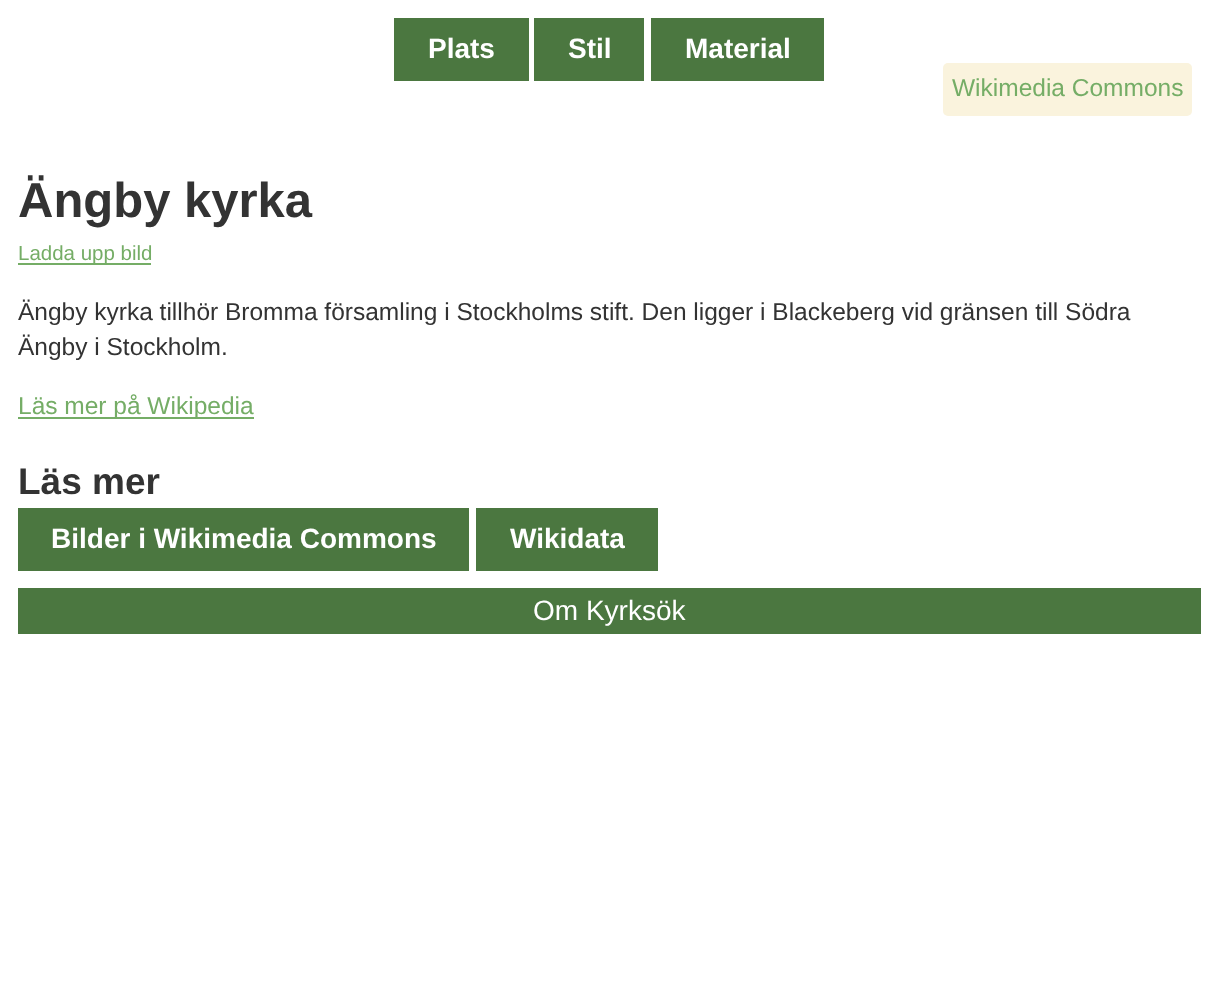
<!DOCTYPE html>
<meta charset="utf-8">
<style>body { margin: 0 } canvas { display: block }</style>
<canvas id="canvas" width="1218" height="1003"></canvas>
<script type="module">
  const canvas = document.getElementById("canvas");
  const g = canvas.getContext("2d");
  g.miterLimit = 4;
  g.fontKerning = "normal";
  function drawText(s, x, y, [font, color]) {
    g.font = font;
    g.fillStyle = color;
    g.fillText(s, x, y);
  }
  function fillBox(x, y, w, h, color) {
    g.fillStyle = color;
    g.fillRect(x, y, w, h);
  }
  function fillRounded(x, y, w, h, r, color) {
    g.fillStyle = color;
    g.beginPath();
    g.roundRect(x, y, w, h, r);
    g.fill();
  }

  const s1 = ["bold 28px Liberation Sans", "#FFFFFF"];
  const s2 = ["24.5px Liberation Sans", "#75AD66"];
  const s3 = ["bold 49px Liberation Sans", "#333333"];
  const s4 = ["20.5px Liberation Sans", "#75AD66"];
  const s5 = ["24.5px Liberation Sans", "#333333"];
  const s6 = ["bold 37px Liberation Sans", "#333333"];
  const s7 = ["28px Liberation Sans", "#FFFFFF"];

  fillBox(0, 0, 1218, 1003, "#FFFFFF");
  fillBox(394, 18, 135, 63, "#4B7740");
  drawText("Plats", 428, 58, s1);
  fillBox(534, 18, 110, 63, "#4B7740");
  drawText("Stil", 568, 58, s1);
  fillBox(651, 18, 173, 63, "#4B7740");
  drawText("Material", 685, 58, s1);
  fillRounded(943, 63, 249, 53, 5, "#FAF3DD");
  drawText("Wikimedia Commons", 952, 96, s2);
  drawText("Ängby kyrka", 18, 217, s3);
  fillBox(18, 263, 133, 2, "#75AD66");
  drawText("Ladda upp bild", 18, 260, s4);
  drawText("Ängby kyrka tillhör Bromma församling i Stockholms stift. Den ligger i Blackeberg vid gränsen till Södra", 18, 320, s5);
  drawText("Ängby i Stockholm.", 18, 355, s5);
  fillBox(18, 417, 236, 2, "#75AD66");
  drawText("Läs mer på Wikipedia", 18, 414, s2);
  drawText("Läs mer", 18, 494, s6);
  fillBox(18, 508, 451, 63, "#4B7740");
  drawText("Bilder i Wikimedia Commons", 51, 548, s1);
  fillBox(476, 508, 182, 63, "#4B7740");
  drawText("Wikidata", 510, 548, s1);
  fillBox(18, 588, 1183, 46, "#4B7740");
  drawText("Om Kyrksök", 533, 620, s7);
</script>
